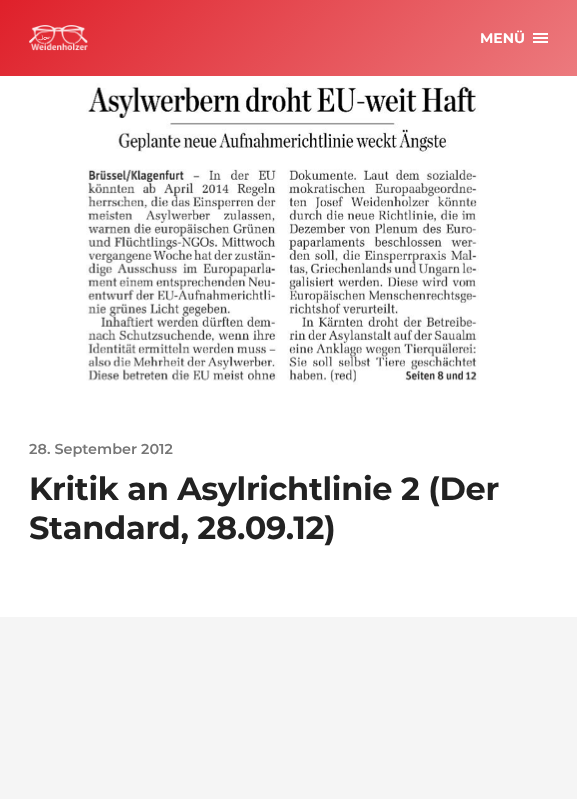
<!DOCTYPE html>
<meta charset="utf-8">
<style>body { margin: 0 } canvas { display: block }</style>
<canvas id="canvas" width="577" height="799"></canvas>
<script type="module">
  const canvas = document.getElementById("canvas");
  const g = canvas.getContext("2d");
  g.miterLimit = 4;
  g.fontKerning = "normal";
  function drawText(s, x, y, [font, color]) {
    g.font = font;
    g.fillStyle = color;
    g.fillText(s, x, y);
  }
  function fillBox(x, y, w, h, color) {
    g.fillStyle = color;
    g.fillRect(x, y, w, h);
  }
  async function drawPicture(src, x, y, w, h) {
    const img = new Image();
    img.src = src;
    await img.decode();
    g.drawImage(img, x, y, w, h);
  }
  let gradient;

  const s1 = ["100 14px 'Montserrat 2'", "#FFFFFF"];
  const s2 = ["100 14.4px Montserrat", "#767676"];
  const s3 = ["100 32px 'Montserrat 2'", "#222222"];

  fillBox(0, 0, 577, 799, "#F5F5F5");
  gradient = g.createLinearGradient(125, -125, 452, 201);
  gradient.addColorStop(0, "#DF202A");
  gradient.addColorStop(1, "#EC7A7E");
  g.fillStyle = gradient;
  g.fillRect(0, 0, 577, 76);
  await drawPicture("pic1.png", 29, 25, 59, 26);
  drawText("MENÜ", 480, 43, s1);
  fillBox(533, 33, 15, 2, "#FFFFFF");
  fillBox(533, 37, 15, 2, "#FFFFFF");
  fillBox(533, 41, 15, 2, "#FFFFFF");
  fillBox(0, 76, 577, 541, "#FFFFFF");
  await drawPicture("pic2.png", 86, 83, 393, 302);
  drawText("28. September 2012", 29, 454, s2);
  g.letterSpacing = "-0.3px";
  drawText("Kritik an Asylrichtlinie 2 (Der", 29, 500, s3);
  drawText("Standard, 28.09.12)", 29, 539, s3);
</script>
